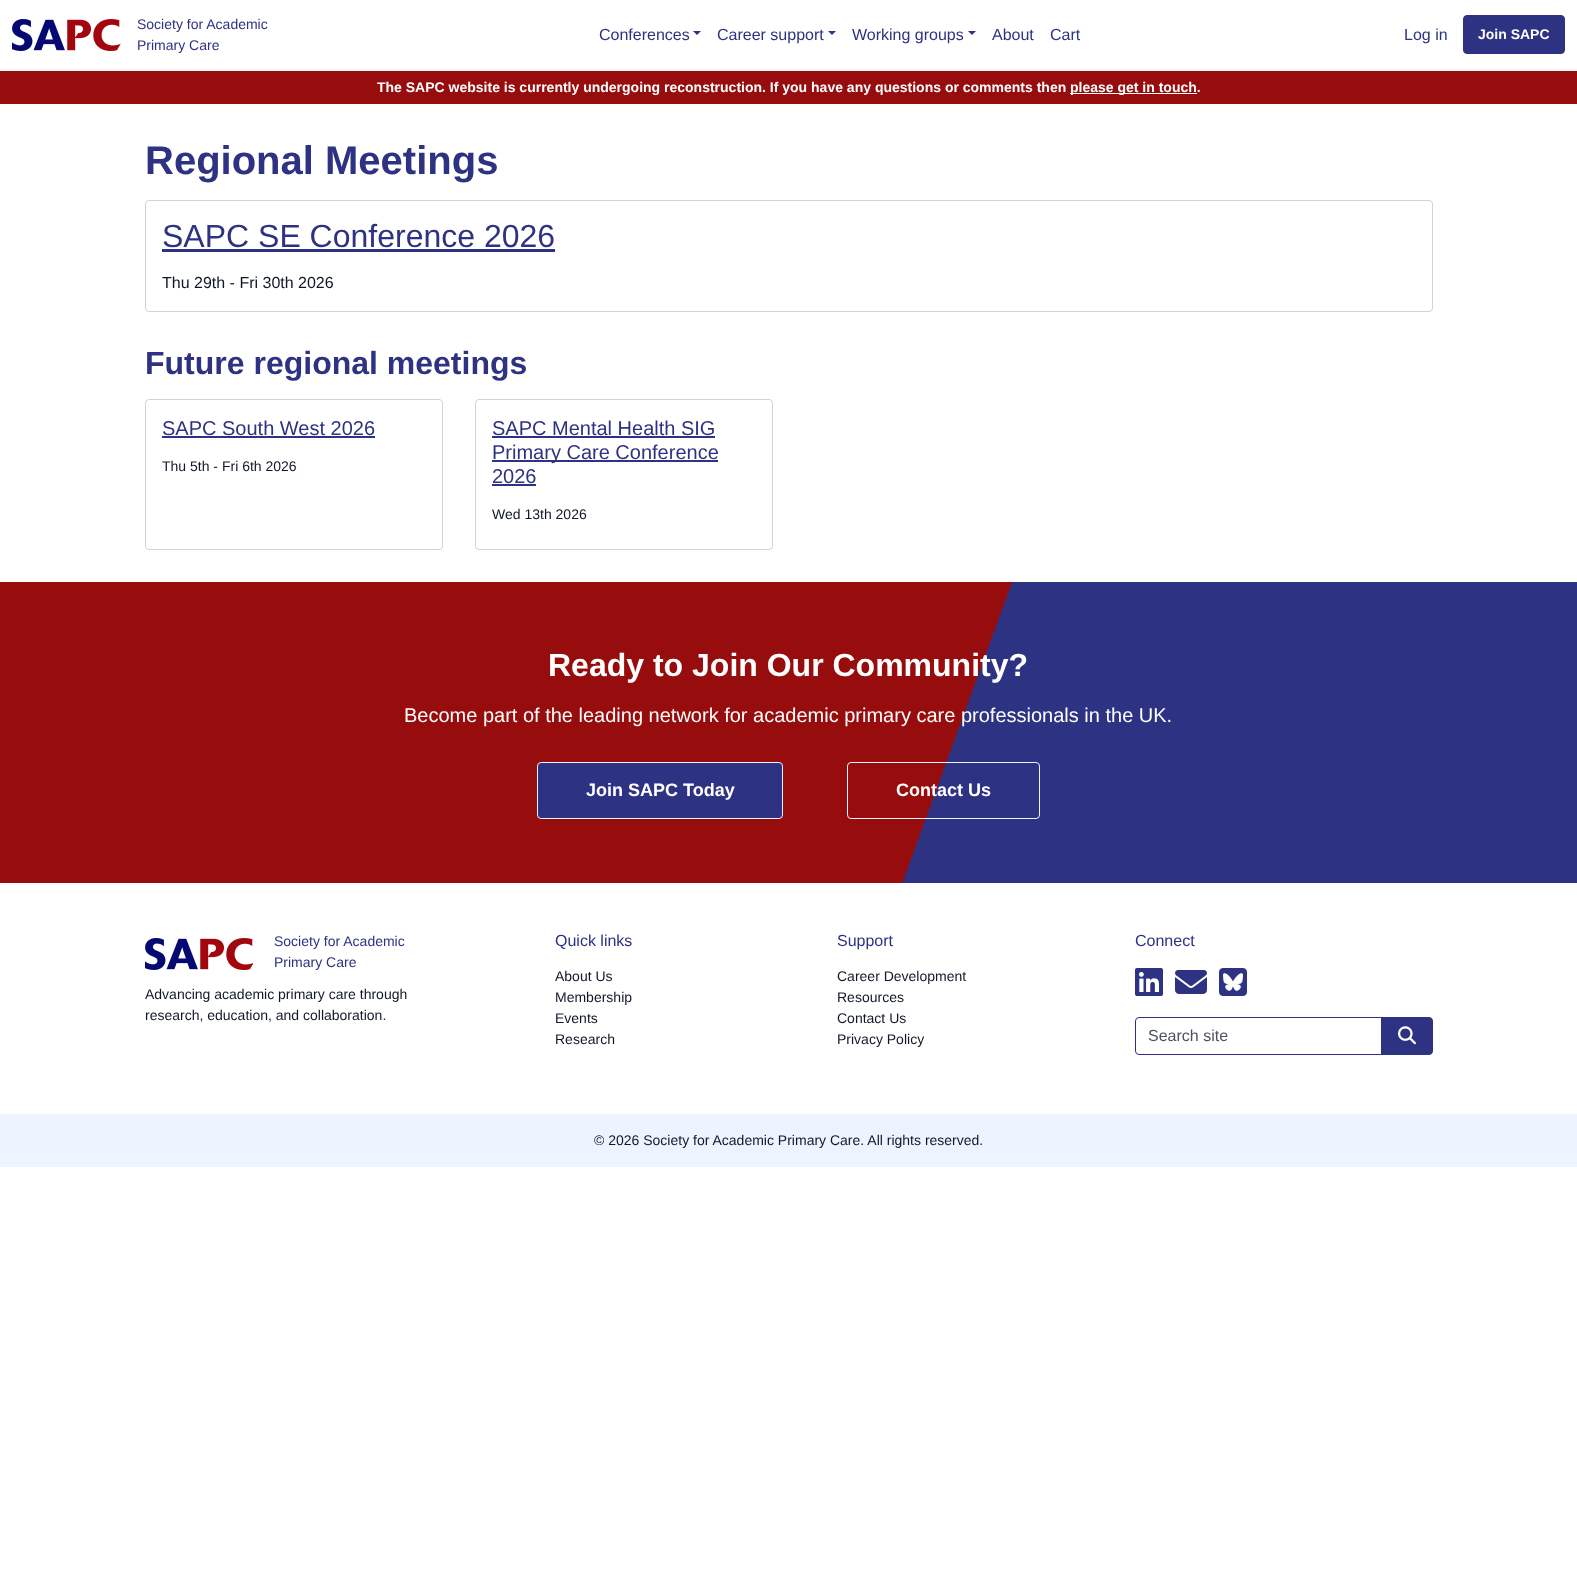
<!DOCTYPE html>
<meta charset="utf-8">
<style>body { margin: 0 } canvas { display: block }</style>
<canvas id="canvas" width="1577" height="1582"></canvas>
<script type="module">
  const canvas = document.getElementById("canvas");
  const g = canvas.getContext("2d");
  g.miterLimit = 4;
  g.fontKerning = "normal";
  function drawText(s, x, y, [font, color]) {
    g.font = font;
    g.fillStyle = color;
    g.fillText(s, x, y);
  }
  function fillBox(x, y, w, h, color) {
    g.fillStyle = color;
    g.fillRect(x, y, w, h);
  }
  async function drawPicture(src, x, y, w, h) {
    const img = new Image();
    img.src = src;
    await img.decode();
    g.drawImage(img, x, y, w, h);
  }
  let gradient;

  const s1 = ["14px Liberation Sans", "#2D3282"];
  const s2 = ["16px Liberation Sans", "#2D3282"];
  const s3 = ["bold 14px Liberation Sans", "#FFFFFF"];
  const s4 = ["bold 40px Liberation Sans", "#2D3282"];
  const s5 = ["32px Liberation Sans", "#2D3282"];
  const s6 = ["16px Liberation Sans", "#101828"];
  const s7 = ["bold 32px Liberation Sans", "#2D3282"];
  const s8 = ["20px Liberation Sans", "#2D3282"];
  const s9 = ["14px Liberation Sans", "#101828"];
  const s10 = ["bold 32px Liberation Sans", "#FFFFFF"];
  const s11 = ["20px Liberation Sans", "#FFFFFF"];
  const s12 = ["bold 18px Liberation Sans", "#FFFFFF"];
  const s13 = ["16px Liberation Sans", "#4C525E"];

  fillBox(0, 0, 1577, 1582, "#FFFFFF");
  fillBox(0, 69, 1577, 2, "#EEF4FF");
  await drawPicture("pic1.png", 12, 19, 109, 32);
  drawText("Society for Academic", 137, 29, s1);
  drawText("Primary Care", 137, 50, s1);
  drawText("Conferences", 599, 40, s2);
  g.beginPath();
  g.moveTo(693, 31);
  g.lineTo(701, 31);
  g.lineTo(697, 35);
  g.closePath();
  g.fill();
  drawText("Career support", 717, 40, s2);
  g.beginPath();
  g.moveTo(828, 31);
  g.lineTo(836, 31);
  g.lineTo(832, 35);
  g.closePath();
  g.fill();
  drawText("Working groups", 852, 40, s2);
  g.beginPath();
  g.moveTo(968, 31);
  g.lineTo(976, 31);
  g.lineTo(972, 35);
  g.closePath();
  g.fill();
  drawText("About", 992, 40, s2);
  drawText("Cart", 1050, 40, s2);
  drawText("Log in", 1404, 40, s2);
  g.beginPath();
  g.roundRect(1463.5, 15.5, 101, 38, 3.5);
  g.fill();
  g.strokeStyle = "#2D3282";
  g.stroke();
  drawText("Join SAPC", 1478, 39, s3);
  fillBox(0, 71, 1577, 33, "#970C0C");
  drawText("The SAPC website is currently undergoing reconstruction. If you have any questions or comments then", 377, 92, s3);
  fillBox(1070, 93, 127, 1, "#FFFFFF");
  drawText("please get in touch.", 1070, 92, s3);
  drawText("Regional Meetings", 145, 174, s4);
  g.beginPath();
  g.roundRect(145.5, 200.5, 1287, 111, 3.5);
  g.strokeStyle = "#D2D2D2";
  g.stroke();
  drawText("SAPC SE Conference 2026", 162, 247, s5);
  fillBox(162, 249, 393, 3, "#2D3282");
  drawText("Thu 29th - Fri 30th 2026", 162, 288, s6);
  drawText("Future regional meetings", 145, 374, s7);
  g.beginPath();
  g.roundRect(145.5, 399.5, 297, 150, 3.5);
  g.stroke();
  drawText("SAPC South West 2026", 162, 435, s8);
  fillBox(162, 436, 213, 2, "#2D3282");
  drawText("Thu 5th - Fri 6th 2026", 162, 471, s9);
  g.beginPath();
  g.roundRect(475.5, 399.5, 297, 150, 3.5);
  g.stroke();
  drawText("SAPC Mental Health SIG", 492, 435, s8);
  fillBox(492, 436, 223, 2, "#2D3282");
  fillBox(492, 460, 226, 2, "#2D3282");
  drawText("Primary Care Conference", 492, 459, s8);
  drawText("2026", 492, 483, s8);
  fillBox(492, 484, 44, 2, "#2D3282");
  drawText("Wed 13th 2026", 492, 519, s9);
  gradient = g.createLinearGradient(44, 461, 1533, 1004);
  gradient.addColorStop(0.6, "#970C0C");
  gradient.addColorStop(0.6, "#2D3282");
  g.fillStyle = gradient;
  g.fillRect(0, 582, 1577, 301);
  drawText("Ready to Join Our Community?", 548, 676, s10);
  drawText("Become part of the leading network for academic primary care professionals in the UK.", 404, 722, s11);
  g.fillStyle = "#2D3282";
  g.beginPath();
  g.roundRect(537.5, 762.5, 245, 56, 3.5);
  g.fill();
  g.strokeStyle = "#EEF4FF";
  g.stroke();
  drawText("Join SAPC Today", 586, 796, s12);
  g.beginPath();
  g.roundRect(847.5, 762.5, 192, 56, 3.5);
  g.stroke();
  drawText("Contact Us", 896, 796, s12);
  await drawPicture("pic2.png", 145, 938, 108, 32);
  drawText("Society for Academic", 274, 946, s1);
  drawText("Primary Care", 274, 967, s1);
  drawText("Advancing academic primary care through", 145, 999, s9);
  drawText("research, education, and collaboration.", 145, 1020, s9);
  drawText("Quick links", 555, 946, s2);
  drawText("About Us", 555, 981, s9);
  drawText("Membership", 555, 1002, s9);
  drawText("Events", 555, 1023, s9);
  drawText("Research", 555, 1044, s9);
  drawText("Support", 837, 946, s2);
  drawText("Career Development", 837, 981, s9);
  drawText("Resources", 837, 1002, s9);
  drawText("Contact Us", 837, 1023, s9);
  drawText("Privacy Policy", 837, 1044, s9);
  drawText("Connect", 1135, 946, s2);
  await drawPicture("pic3.png", 1135, 968, 28, 28);
  await drawPicture("pic4.png", 1175, 970, 32, 24);
  await drawPicture("pic5.png", 1219, 968, 28, 28);
  g.beginPath();
  g.roundRect(1135.5, 1017.5, 246, 37, [3.5, 0, 0, 3.5]);
  g.strokeStyle = "#2D3282";
  g.stroke();
  drawText("Search site", 1148, 1041, s13);
  g.fillStyle = "#2D3282";
  g.beginPath();
  g.roundRect(1381.5, 1017.5, 51, 37, [0, 3.5, 3.5, 0]);
  g.fill();
  g.stroke();
  await drawPicture("pic6.png", 1398, 1026, 18, 19);
  fillBox(0, 1114, 1577, 53, "#EEF4FF");
  drawText("© 2026 Society for Academic Primary Care. All rights reserved.", 594, 1145, s9);
</script>
